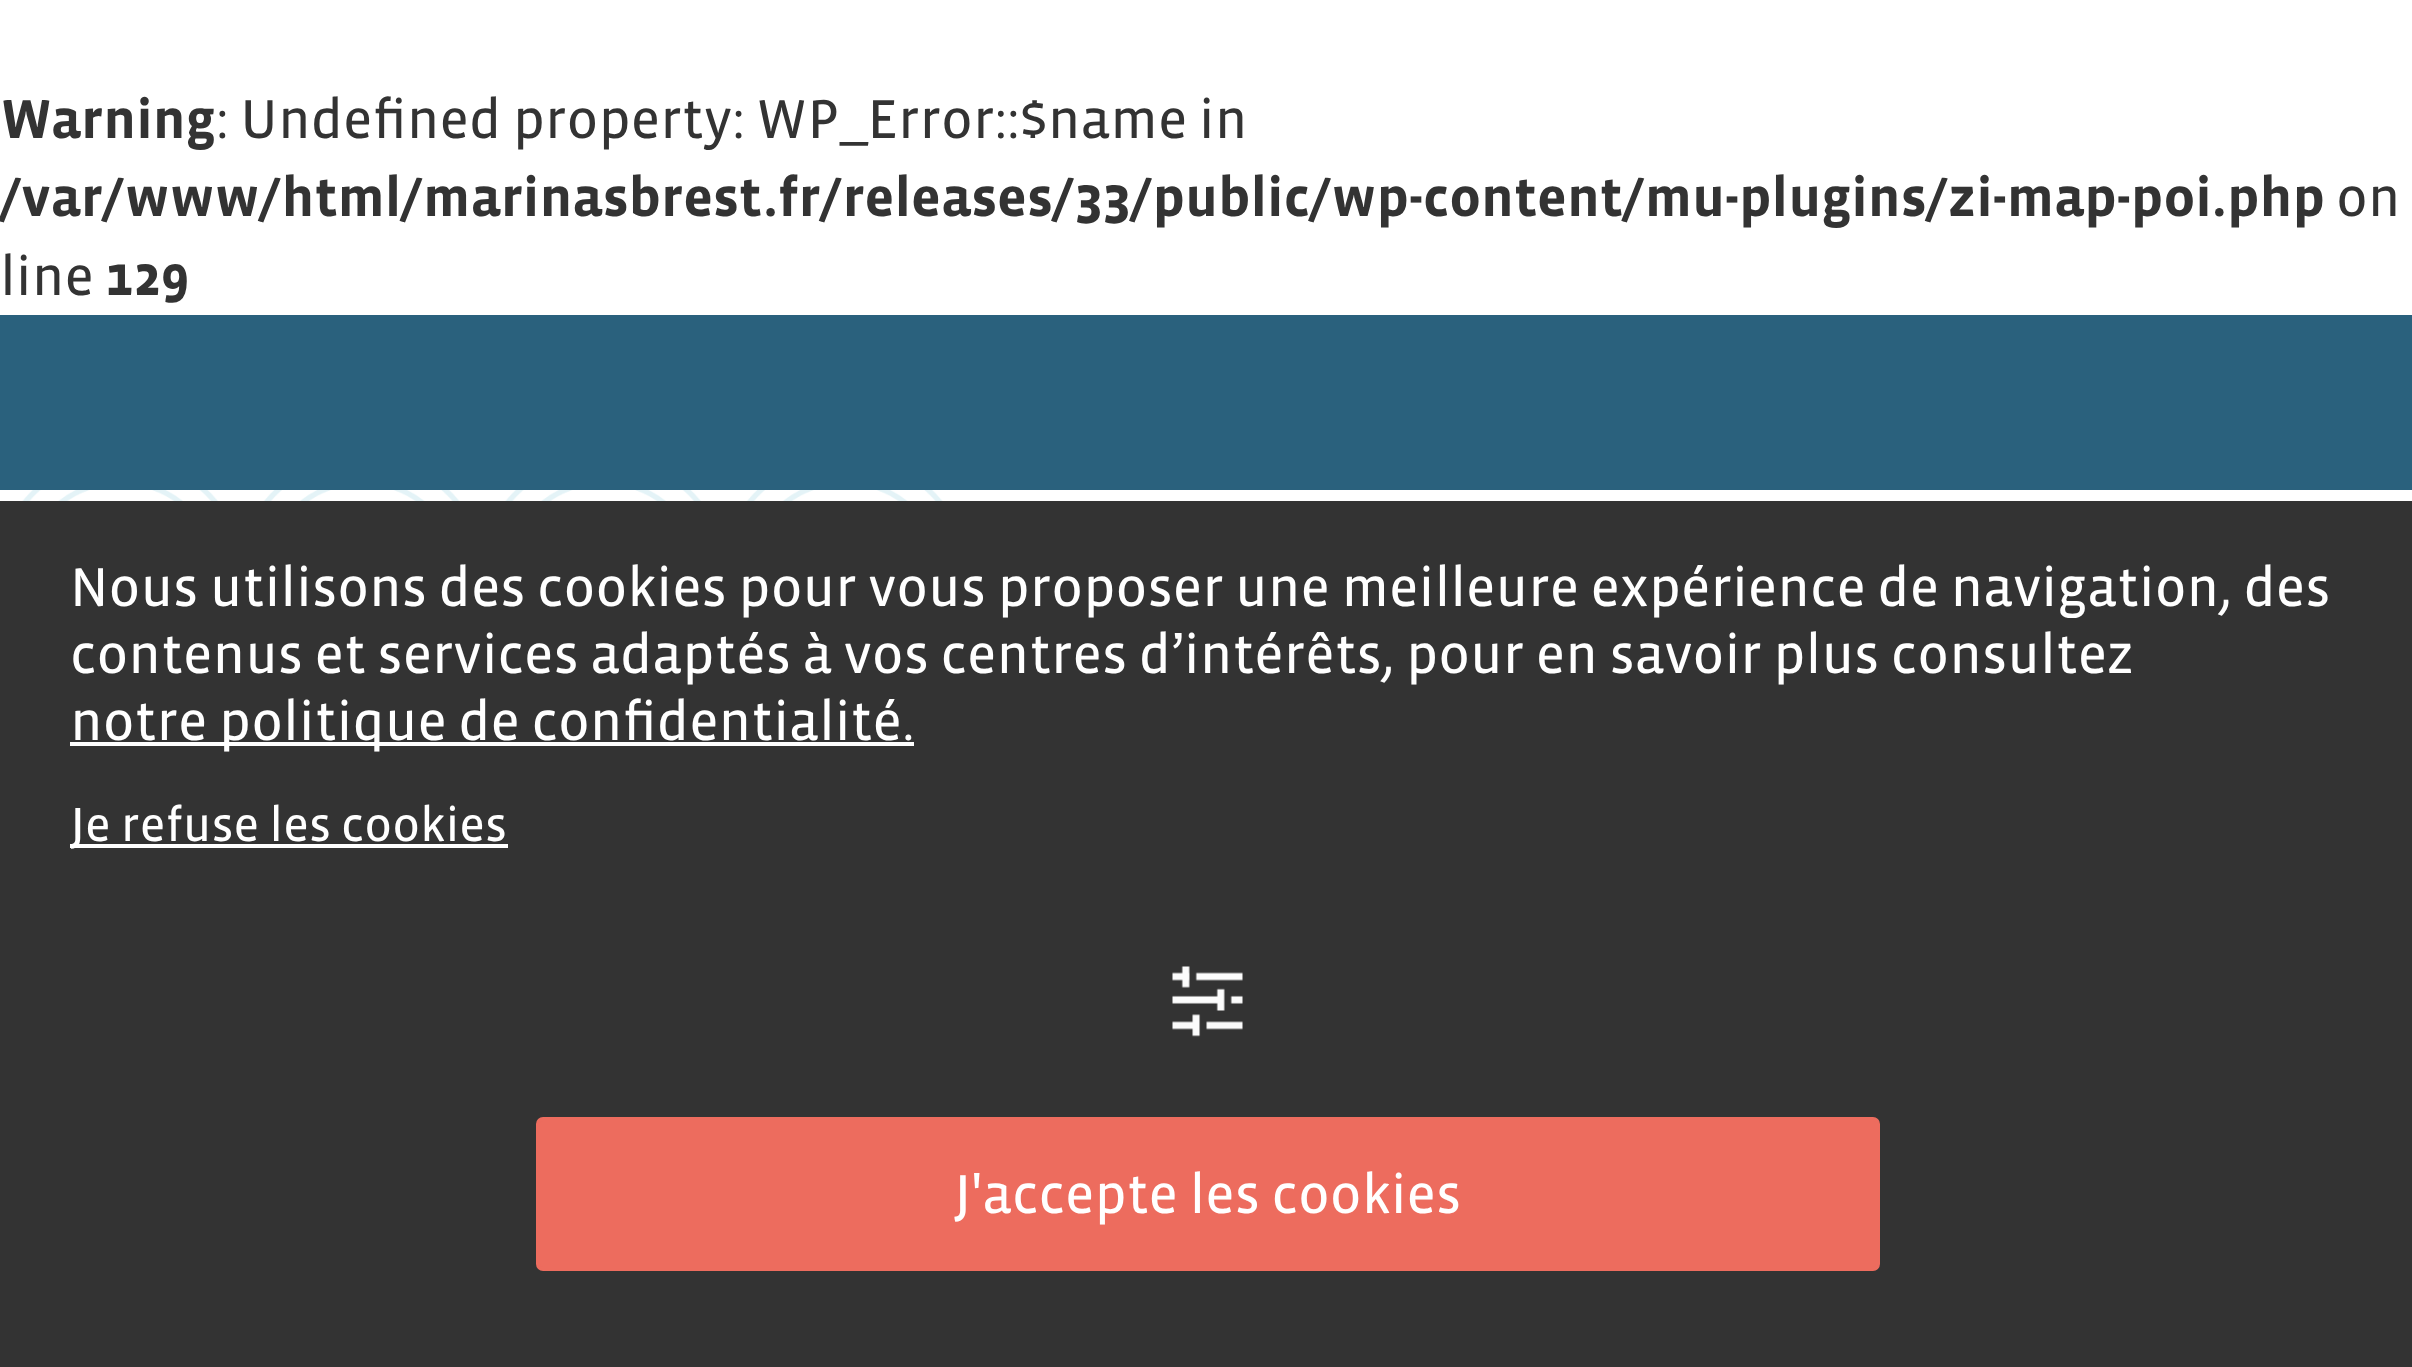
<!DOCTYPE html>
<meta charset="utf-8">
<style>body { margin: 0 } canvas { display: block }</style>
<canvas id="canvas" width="2412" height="1367"></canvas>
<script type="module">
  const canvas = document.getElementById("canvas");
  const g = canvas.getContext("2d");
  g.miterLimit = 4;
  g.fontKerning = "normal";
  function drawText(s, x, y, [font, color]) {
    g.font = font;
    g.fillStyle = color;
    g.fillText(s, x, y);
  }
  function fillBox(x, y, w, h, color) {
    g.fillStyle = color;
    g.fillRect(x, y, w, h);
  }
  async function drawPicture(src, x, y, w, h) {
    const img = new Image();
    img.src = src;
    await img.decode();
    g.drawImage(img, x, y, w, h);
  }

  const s1 = ["bold 56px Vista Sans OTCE", "#333333"];
  const s2 = ["56px Vista Sans OTCE", "#333333"];
  const s3 = ["56px Vista Sans OTCE", "#FFFFFF"];
  const s4 = ["49px Vista Sans OTCE", "#FFFFFF"];

  fillBox(0, 0, 2412, 1367, "#FFFFFF");
  drawText("Warning", 0, 138, s1);
  drawText(": Undefined property: WP_Error::$name in", 216, 138, s2);
  drawText("/var/www/html/marinasbrest.fr/releases/33/public/wp-content/mu-plugins/zi-map-poi.php", 0, 216, s1);
  drawText("on", 2336, 216, s2);
  drawText("line", 0, 295, s2);
  drawText("129", 105, 295, s1);
  fillBox(0, 315, 2412, 175, "#2A617D");
  await drawPicture("pic1.png", 22, 490, 921, 11);
  fillBox(0, 501, 2412, 866, "#333333");
  drawText("Nous utilisons des cookies pour vous proposer une meilleure expérience de navigation, des", 70, 606, s3);
  drawText("contenus et services adaptés à vos centres d’intérêts, pour en savoir plus consultez", 70, 673, s3);
  fillBox(70, 742, 844, 4, "#FFFFFF");
  drawText("notre politique de confidentialité.", 70, 740, s3);
  fillBox(70, 844, 438, 4, "#FFFFFF");
  drawText("Je refuse les cookies", 70, 841, s4);
  await drawPicture("pic2.png", 1172, 966, 71, 71);
  g.fillStyle = "#ED6C5E";
  g.beginPath();
  g.roundRect(538, 1119, 1340, 150, 5);
  g.fill();
  g.strokeStyle = "#ED6C5E";
  g.lineWidth = 4;
  g.stroke();
  drawText("J'accepte les cookies", 954, 1213, s3);
</script>
